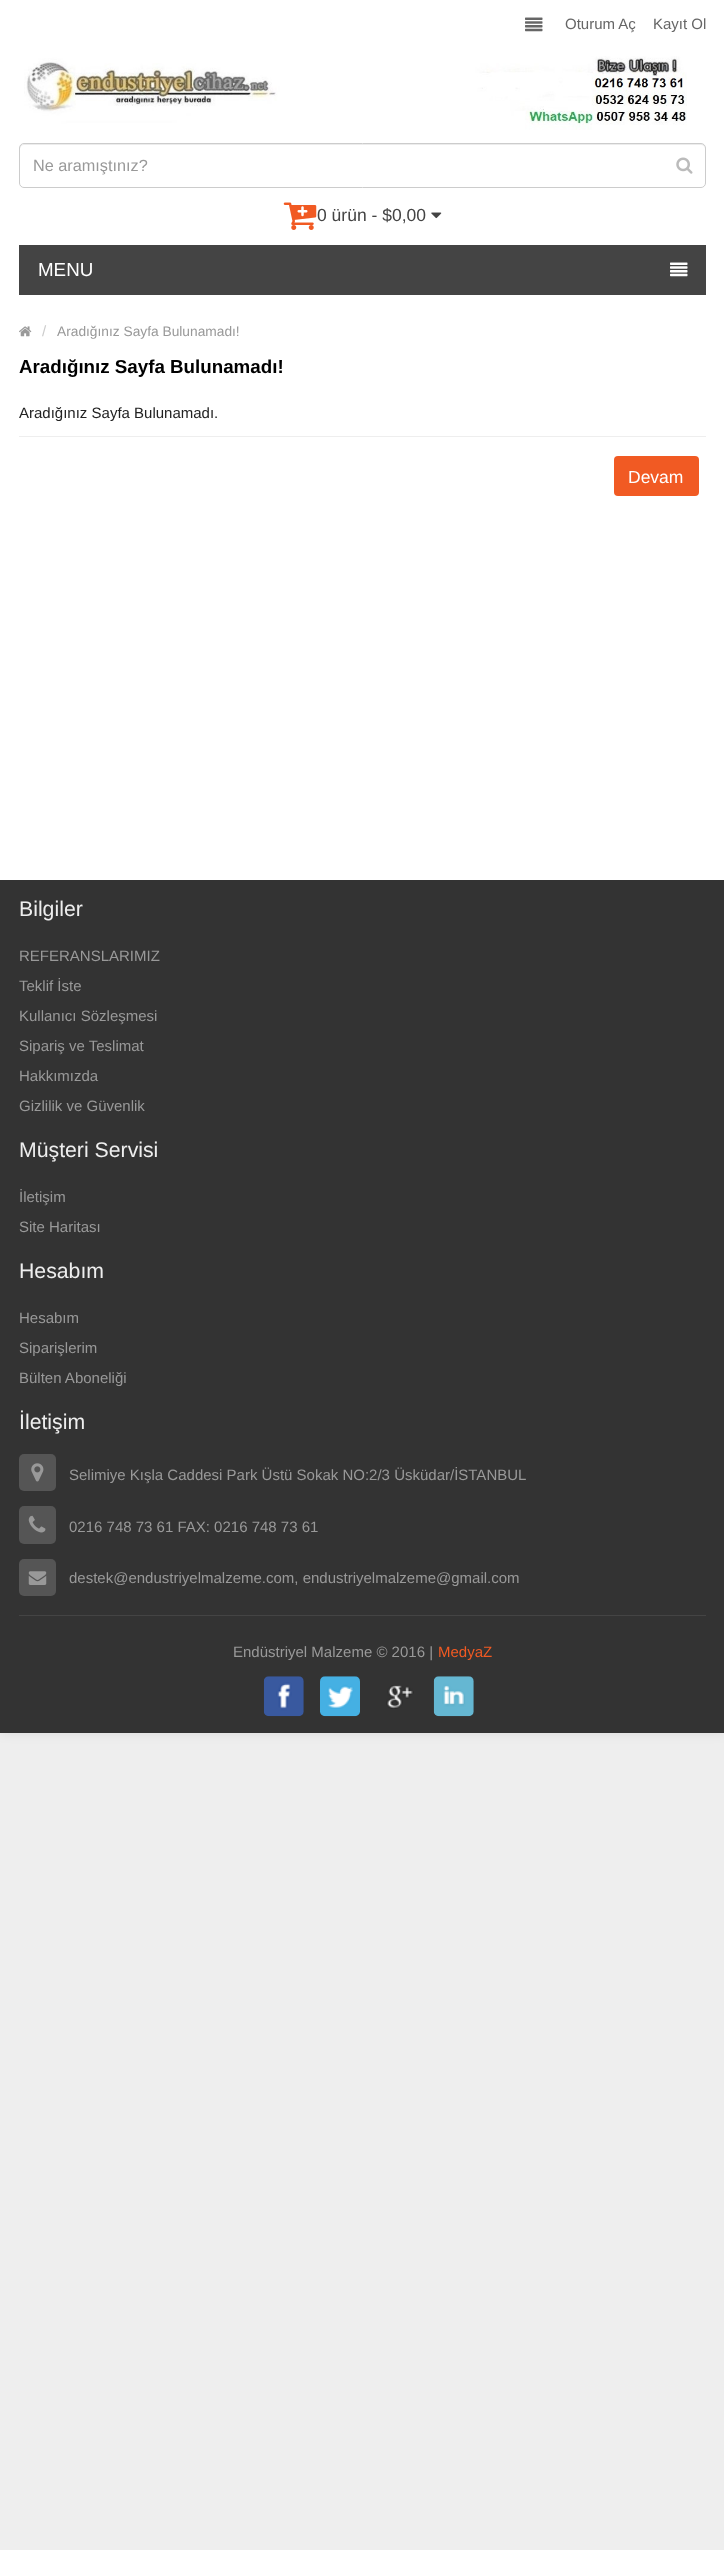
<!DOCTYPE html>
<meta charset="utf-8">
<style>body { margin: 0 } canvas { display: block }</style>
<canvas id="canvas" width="724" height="2550"></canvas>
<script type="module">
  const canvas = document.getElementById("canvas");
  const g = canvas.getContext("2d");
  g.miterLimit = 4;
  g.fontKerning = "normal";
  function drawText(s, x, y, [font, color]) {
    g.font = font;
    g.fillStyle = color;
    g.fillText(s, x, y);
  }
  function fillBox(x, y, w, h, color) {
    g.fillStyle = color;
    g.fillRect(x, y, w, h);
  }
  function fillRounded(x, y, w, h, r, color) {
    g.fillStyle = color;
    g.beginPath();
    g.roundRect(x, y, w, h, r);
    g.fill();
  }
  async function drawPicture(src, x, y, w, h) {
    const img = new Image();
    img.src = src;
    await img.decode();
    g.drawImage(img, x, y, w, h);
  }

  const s1 = ["15px Liberation Sans", "#666666"];
  const s2 = ["16.25px Liberation Sans", "#999999"];
  const s3 = ["17.5px Liberation Sans", "#444444"];
  const s4 = ["18.75px Liberation Sans", "#FFFFFF"];
  const s5 = ["15px Liberation Sans", "#CCCCCC"];
  const s6 = ["13.75px Liberation Sans", "#999999"];
  const s7 = ["bold 18.75px Liberation Sans", "#000000"];
  const s8 = ["15px Liberation Sans", "#222222"];
  const s9 = ["17.5px Liberation Sans", "#FFFFFF"];
  const s10 = ["21.25px Liberation Sans", "#EEEEEE"];
  const s11 = ["15px Liberation Sans", "#999999"];
  const s12 = ["15px Liberation Sans", "#F15A23"];

  fillBox(0, 0, 724, 2550, "#EEEEEE");
  g.fillStyle = "rgba(0, 0, 0, 0.08)";
  g.filter = "blur(6px)";
  g.beginPath();
  g.rect(0, 0, 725, 1733);
  g.fill();
  g.filter = "none";
  fillBox(0, 0, 724, 880, "#FFFFFF");
  await drawPicture("pic1.png", 525, 17, 18, 15);
  drawText("Oturum Aç", 565, 29, s1);
  drawText("Kayıt Ol", 653, 29, s1);
  await drawPicture("pic2.png", 24, 56, 663, 74);
  g.fillStyle = "#ECECEC";
  g.beginPath();
  g.moveTo(24, 145);
  g.lineTo(701, 145);
  g.bezierCurveTo(703, 145, 705, 147, 705, 149);
  g.bezierCurveTo(705, 146, 704, 144, 701, 144);
  g.lineTo(24, 144);
  g.lineTo(21, 145);
  g.lineTo(20, 146);
  g.lineTo(20, 149);
  g.bezierCurveTo(20, 147, 22, 145, 24, 145);
  g.closePath();
  g.fill();
  g.beginPath();
  g.roundRect(19.5, 143.5, 686, 44, 4.5);
  g.strokeStyle = "#CCCCCC";
  g.stroke();
  drawText("Ne aramıştınız?", 33, 171, s2);
  await drawPicture("pic3.png", 676, 157, 17, 17);
  await drawPicture("pic4.png", 283, 202, 34, 28);
  drawText("0 ürün - $0,00", 317, 221, s3);
  await drawPicture("pic5.png", 431, 212, 11, 7);
  fillBox(19, 245, 687, 50, "#444444");
  drawText("MENU", 38, 276, s4);
  await drawPicture("pic6.png", 670, 262, 18, 15);
  await drawPicture("pic7.png", 19, 326, 13, 11);
  drawText("/", 42, 336, s5);
  drawText("Aradığınız Sayfa Bulunamadı!", 57, 336, s6);
  drawText("Aradığınız Sayfa Bulunamadı!", 19, 373, s7);
  drawText("Aradığınız Sayfa Bulunamadı.", 19, 418, s8);
  fillBox(19, 436, 687, 1, "#EEEEEE");
  fillRounded(614, 456, 85, 40, 4, "#F15A23");
  drawText("Devam", 628, 483, s9);
  fillBox(0, 880, 724, 853, "#333333");
  drawText("Bilgiler", 19, 916, s10);
  drawText("REFERANSLARIMIZ", 19, 961, s11);
  drawText("Teklif İste", 19, 991, s11);
  drawText("Kullanıcı Sözleşmesi", 19, 1021, s11);
  drawText("Sipariş ve Teslimat", 19, 1051, s11);
  drawText("Hakkımızda", 19, 1081, s11);
  drawText("Gizlilik ve Güvenlik", 19, 1111, s11);
  drawText("Müşteri Servisi", 19, 1157, s10);
  drawText("İletişim", 19, 1202, s11);
  drawText("Site Haritası", 19, 1232, s11);
  drawText("Hesabım", 19, 1278, s10);
  drawText("Hesabım", 19, 1323, s11);
  drawText("Siparişlerim", 19, 1353, s11);
  drawText("Bülten Aboneliği", 19, 1383, s11);
  drawText("İletişim", 19, 1429, s10);
  fillRounded(19, 1454, 37, 37, 5, "#555555");
  await drawPicture("pic8.png", 31, 1463, 13, 19);
  drawText("Selimiye Kışla Caddesi Park Üstü Sokak NO:2/3 Üsküdar/İSTANBUL", 69, 1480, s11);
  fillRounded(19, 1506, 37, 38, 5, "#555555");
  await drawPicture("pic9.png", 28, 1515, 18, 18);
  drawText("0216 748 73 61 FAX: 0216 748 73 61", 69, 1532, s11);
  fillRounded(19, 1559, 37, 37, 5, "#555555");
  await drawPicture("pic10.png", 28, 1571, 19, 14);
  drawText("destek@endustriyelmalzeme.com, endustriyelmalzeme@gmail.com", 69, 1583, s11);
  fillBox(19, 1615, 687, 1, "#444444");
  drawText("Endüstriyel Malzeme © 2016 |", 233, 1657, s11);
  drawText("MedyaZ", 438, 1657, s12);
  await drawPicture("pic11.png", 263, 1676, 41, 41);
  await drawPicture("pic12.png", 320, 1676, 40, 41);
  await drawPicture("pic13.png", 386, 1685, 28, 24);
  await drawPicture("pic14.png", 433, 1676, 41, 41);
</script>
